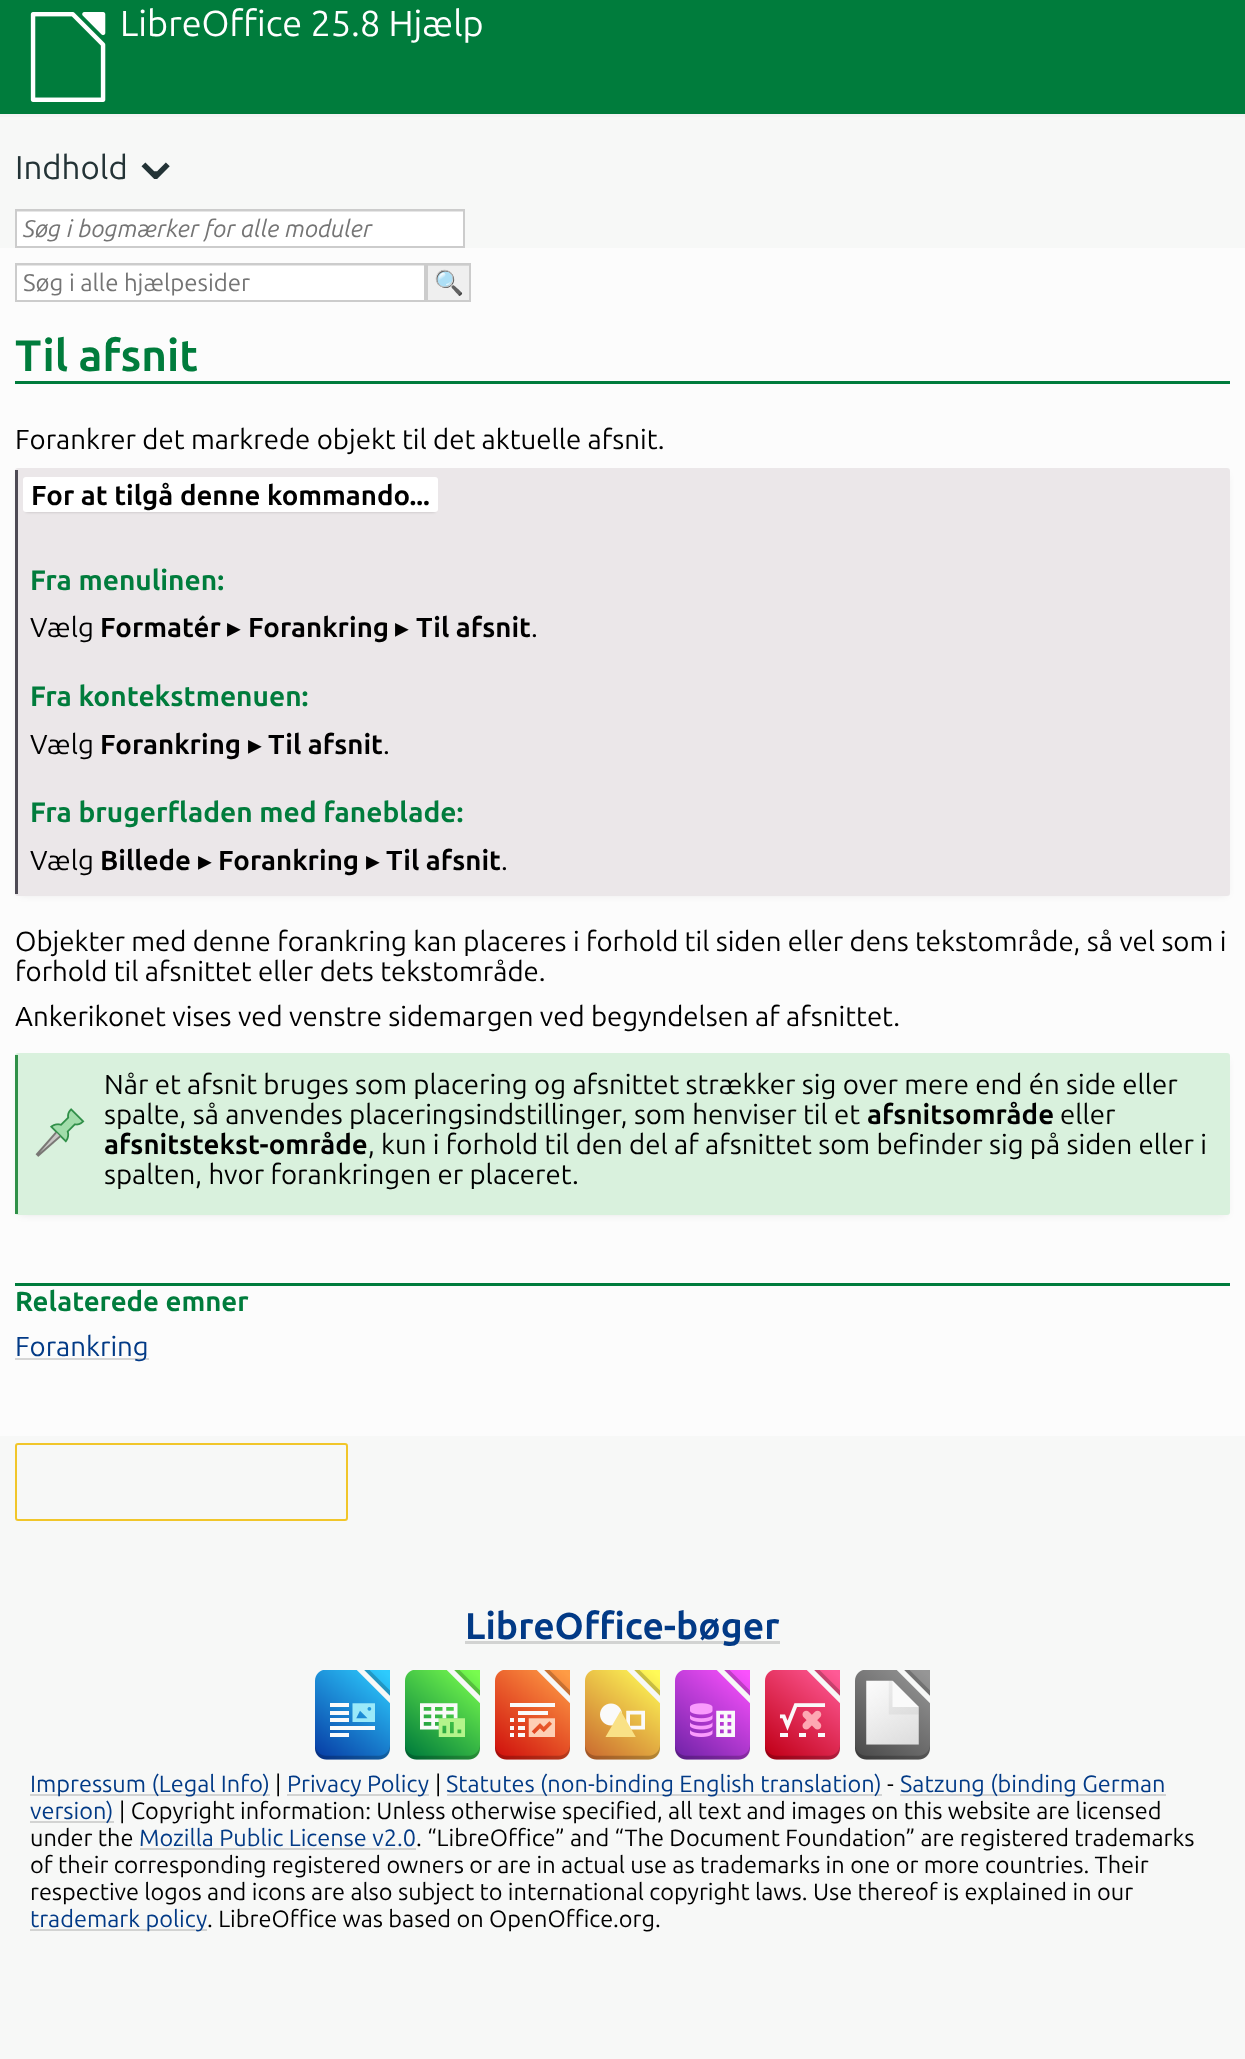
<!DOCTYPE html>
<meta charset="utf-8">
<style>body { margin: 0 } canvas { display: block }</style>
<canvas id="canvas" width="1245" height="2059"></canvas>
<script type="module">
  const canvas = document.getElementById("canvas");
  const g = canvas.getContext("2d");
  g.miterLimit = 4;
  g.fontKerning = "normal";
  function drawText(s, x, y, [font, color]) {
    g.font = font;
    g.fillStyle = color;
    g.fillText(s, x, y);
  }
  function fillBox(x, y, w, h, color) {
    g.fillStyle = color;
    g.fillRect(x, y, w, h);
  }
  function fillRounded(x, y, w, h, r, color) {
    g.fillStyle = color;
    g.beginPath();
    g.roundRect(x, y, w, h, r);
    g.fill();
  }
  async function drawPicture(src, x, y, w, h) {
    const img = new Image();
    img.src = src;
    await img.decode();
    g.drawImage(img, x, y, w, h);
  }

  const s1 = ["36px Ubuntu", "#FFFFFF"];
  const s2 = ["33px Ubuntu", "#233336"];
  const s3 = ["66px DejaVu Sans", "#233336"];
  const s4 = ["italic 24px Ubuntu", "#757575"];
  const s5 = ["24px Ubuntu", "#757575"];
  const s6 = ["24px Noto Color Emoji", "#000000"];
  const s7 = ["bold 44px Ubuntu", "#007C3C"];
  const s8 = ["27.6px Ubuntu", "#000000"];
  const s9 = ["bold 27.6px Ubuntu", "#000000"];
  const s10 = ["bold 28.1px Ubuntu", "#007C3C"];
  const s11 = ["bold 27.6px DejaVu Sans", "#000000"];
  const s12 = ["bold 27.6px Ubuntu", "#007C3C"];
  const s13 = ["27.6px Ubuntu", "#023A86"];
  const s14 = ["bold 37.25px Ubuntu", "#023A86"];
  const s15 = ["23.5px Ubuntu", "#023A86"];
  const s16 = ["23.5px Ubuntu", "#000000"];

  fillBox(0, 0, 1245, 2059, "#F7F8F7");
  fillBox(0, 0, 1245, 114, "#007C3C");
  await drawPicture("pic1.png", 30, 12, 76, 90);
  drawText("LibreOffice 25.8 Hjælp", 120, 36, s1);
  fillBox(0, 114, 1245, 3, "#F3F3F3");
  drawText("Indhold", 15, 179, s2);
  drawText("⌄", 128, 179, s3);
  fillBox(17, 212, 446, 34, "#FFFFFF");
  fillBox(17, 211, 447, 1, "#E6E6E6");
  g.strokeStyle = "#CCCCCC";
  g.lineWidth = 2;
  g.strokeRect(16, 210, 448, 37);
  drawText("Søg i bogmærker for alle moduler", 23, 237, s4);
  fillBox(0, 248, 1245, 1188, "#FCFCFC");
  fillBox(17, 266, 407, 34, "#FFFFFF");
  fillBox(17, 265, 408, 1, "#E6E6E6");
  g.strokeRect(16, 264, 409, 37);
  drawText("Søg i alle hjælpesider", 23, 291, s5);
  fillBox(428, 266, 41, 34, "#EFEFEF");
  fillBox(428, 265, 42, 1, "#D7D7D7");
  g.strokeRect(427, 264, 43, 37);
  drawText("🔍", 434, 291, s6);
  fillBox(15, 381, 1215, 3, "#007C3C");
  drawText("Til afsnit", 15, 371, s7);
  drawText("Forankrer det markrede objekt til det aktuelle afsnit.", 15, 449, s8);
  g.fillStyle = "rgba(0, 0, 0, 0.1)";
  g.filter = "blur(4px)";
  g.beginPath();
  g.rect(20, 476, 1206, 418);
  g.fill();
  g.filter = "none";
  fillRounded(15, 468, 1215, 428, 3, "#EBE7E9");
  fillBox(15, 470, 3, 424, "#4E4B55");
  g.fillStyle = "rgba(0, 0, 0, 0.2)";
  g.filter = "blur(1.5px)";
  g.beginPath();
  g.rect(26, 483, 409, 29);
  g.fill();
  g.filter = "none";
  fillRounded(23, 477, 415, 35, 3, "#FFFFFF");
  drawText("For at tilgå denne kommando...", 31, 505, s9);
  drawText("Fra menulinen:", 30, 590, s10);
  drawText("Vælg", 30, 637, s8);
  drawText("Formatér", 100, 637, s9);
  drawText("▸", 227, 637, s11);
  drawText("Forankring", 248, 637, s9);
  drawText("▸", 395, 637, s11);
  drawText("Til afsnit", 416, 637, s9);
  drawText(".", 531, 637, s8);
  drawText("Fra kontekstmenuen:", 30, 706, s10);
  drawText("Vælg", 30, 754, s8);
  drawText("Forankring", 100, 754, s9);
  drawText("▸", 248, 754, s11);
  drawText("Til afsnit", 268, 754, s9);
  drawText(".", 383, 754, s8);
  drawText("Fra brugerfladen med faneblade:", 30, 822, s10);
  drawText("Vælg", 30, 870, s8);
  drawText("Billede", 100, 870, s9);
  drawText("▸", 198, 870, s11);
  drawText("Forankring", 218, 870, s9);
  drawText("▸", 366, 870, s11);
  drawText("Til afsnit", 386, 870, s9);
  drawText(".", 501, 870, s8);
  drawText("Objekter med denne forankring kan placeres i forhold til siden eller dens tekstområde, så vel som i", 15, 951, s8);
  drawText("forhold til afsnittet eller dets tekstområde.", 15, 981, s8);
  drawText("Ankerikonet vises ved venstre sidemargen ved begyndelsen af afsnittet.", 15, 1026, s8);
  g.fillStyle = "rgba(0, 0, 0, 0.1)";
  g.filter = "blur(4px)";
  g.beginPath();
  g.rect(20, 1061, 1206, 153);
  g.fill();
  g.filter = "none";
  fillRounded(15, 1053, 1215, 162, 3, "#D9F1DD");
  fillBox(15, 1055, 3, 159, "#309048");
  await drawPicture("pic2.png", 35, 1108, 50, 49);
  drawText("Når et afsnit bruges som placering og afsnittet strækker sig over mere end én side eller", 104, 1094, s8);
  drawText("spalte, så anvendes placeringsindstillinger, som henviser til et", 104, 1124, s8);
  drawText("afsnitsområde", 867, 1124, s9);
  drawText("eller", 1060, 1124, s8);
  drawText("afsnitstekst-område", 104, 1154, s9);
  drawText(", kun i forhold til den del af afsnittet som befinder sig på siden eller i", 368, 1154, s8);
  drawText("spalten, hvor forankringen er placeret.", 104, 1184, s8);
  fillBox(15, 1283, 1215, 3, "#007C3C");
  drawText("Relaterede emner", 15, 1311, s12);
  fillBox(15, 1358, 134, 2, "#D6D6D6");
  drawText("Forankring", 15, 1356, s13);
  g.beginPath();
  g.roundRect(16, 1444, 331, 76, 2);
  g.strokeStyle = "#F1C62A";
  g.stroke();
  fillBox(465, 1641, 315, 3, "#D2D3D2");
  drawText("LibreOffice-bøger", 465, 1639, s14);
  await drawPicture("pic3.png", 315, 1670, 75, 90);
  await drawPicture("pic4.png", 405, 1670, 75, 90);
  await drawPicture("pic5.png", 495, 1670, 75, 90);
  await drawPicture("pic6.png", 585, 1670, 75, 90);
  await drawPicture("pic7.png", 675, 1670, 75, 90);
  await drawPicture("pic8.png", 765, 1670, 75, 90);
  await drawPicture("pic9.png", 855, 1670, 75, 90);
  fillBox(30, 1794, 240, 2, "#D2D3D2");
  drawText("Impressum (Legal Info)", 30, 1792, s15);
  drawText("|", 275, 1792, s16);
  fillBox(287, 1794, 142, 2, "#D2D3D2");
  drawText("Privacy Policy", 287, 1792, s15);
  drawText("|", 435, 1792, s16);
  fillBox(447, 1794, 435, 2, "#D2D3D2");
  drawText("Statutes (non-binding English translation)", 446, 1792, s15);
  drawText("-", 887, 1792, s16);
  fillBox(900, 1794, 266, 2, "#D2D3D2");
  drawText("Satzung (binding German", 900, 1792, s15);
  fillBox(30, 1821, 84, 2, "#D2D3D2");
  drawText("version)", 30, 1819, s15);
  drawText("| Copyright information: Unless otherwise specified, all text and images on this website are licensed", 119, 1819, s16);
  drawText("under the", 30, 1846, s16);
  drawText("Mozilla Public License v2.0", 139, 1846, s15);
  fillBox(140, 1848, 276, 2, "#D2D3D2");
  drawText(". “LibreOffice” and “The Document Foundation” are registered trademarks", 416, 1846, s16);
  drawText("of their corresponding registered owners or are in actual use as trademarks in one or more countries. Their", 30, 1873, s16);
  drawText("respective logos and icons are also subject to international copyright laws. Use thereof is explained in our", 30, 1900, s16);
  fillBox(30, 1929, 177, 2, "#D2D3D2");
  drawText("trademark policy", 30, 1927, s15);
  drawText(". LibreOffice was based on OpenOffice.org.", 207, 1927, s16);
</script>
